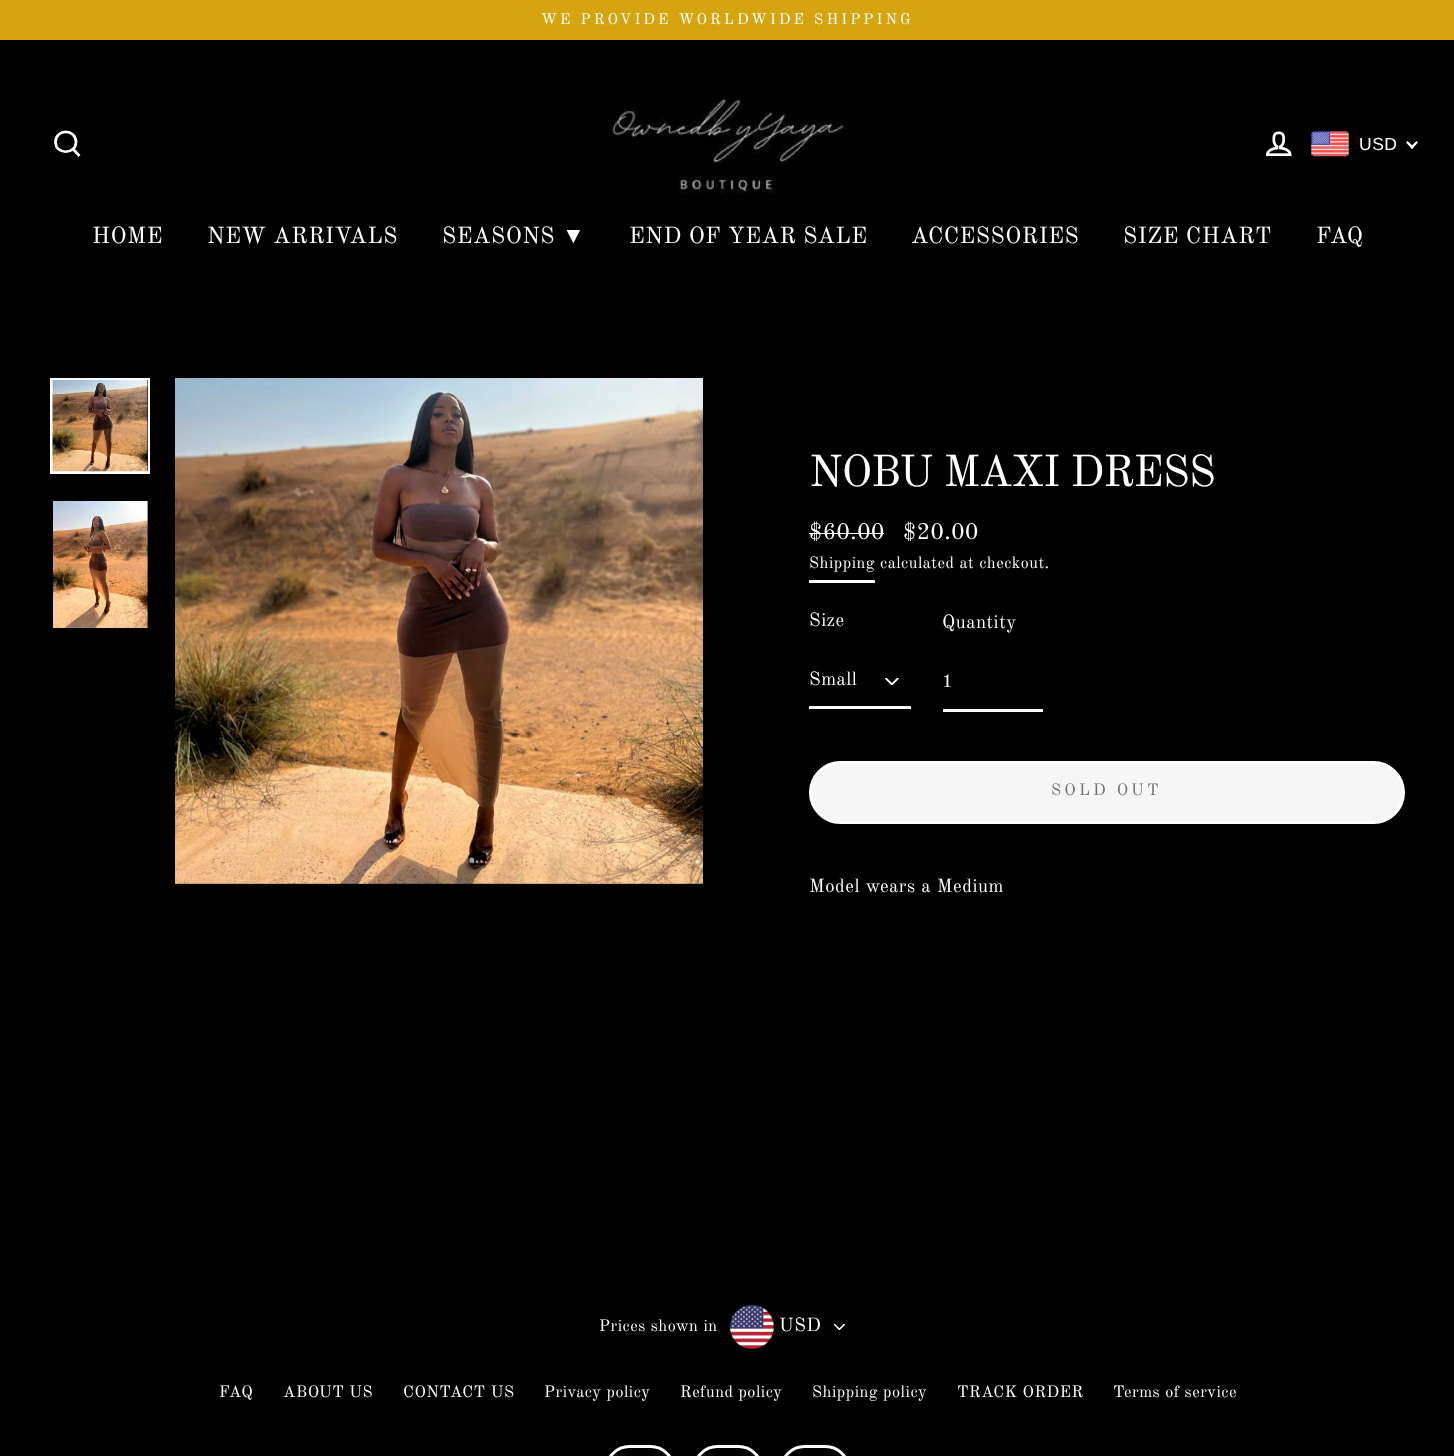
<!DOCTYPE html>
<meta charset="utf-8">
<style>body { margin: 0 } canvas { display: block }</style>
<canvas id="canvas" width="1454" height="1456"></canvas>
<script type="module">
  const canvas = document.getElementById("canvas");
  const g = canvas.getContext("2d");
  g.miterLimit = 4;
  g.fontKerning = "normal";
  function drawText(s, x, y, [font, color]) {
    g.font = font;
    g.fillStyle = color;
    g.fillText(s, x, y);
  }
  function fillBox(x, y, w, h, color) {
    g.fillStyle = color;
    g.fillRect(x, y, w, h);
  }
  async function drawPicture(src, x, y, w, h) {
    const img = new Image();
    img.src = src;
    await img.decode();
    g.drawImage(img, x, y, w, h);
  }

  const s1 = ["15px Old Standard TT", "#FFFFFF"];
  const s2 = ["17.5px Liberation Sans", "#FFFFFF"];
  const s3 = ["22.9px Old Standard TT", "#FFFFFF"];
  const s4 = ["22.9px Liberation Serif", "#FFFFFF"];
  const s5 = ["43.75px Old Standard TT", "#FFFFFF"];
  const s6 = ["16.25px Old Standard TT", "#FFFFFF"];
  const s7 = ["18.75px Old Standard TT", "#FFFFFF"];
  const s8 = ["16.25px Old Standard TT", "#717171"];

  fillBox(0, 0, 1454, 1456, "#000000");
  fillBox(0, 0, 1454, 40, "#D4A511");
  g.letterSpacing = "3px";
  drawText("WE PROVIDE WORLDWIDE SHIPPING", 541, 24, s1);
  g.beginPath();
  g.moveTo(76, 142);
  g.bezierCurveTo(76, 155, 55.5, 155, 55.5, 142);
  g.bezierCurveTo(55.5, 128.5, 76, 128.5, 76, 142);
  g.closePath();
  g.moveTo(79.5, 156);
  g.lineTo(73, 149);
  g.strokeStyle = "#FFFFFF";
  g.lineWidth = 2.7;
  g.stroke();
  await drawPicture("pic1.png", 609, 95, 237, 99);
  await drawPicture("pic2.png", 1265, 131, 27, 26);
  await drawPicture("pic3.png", 1311, 131, 38, 26);
  g.letterSpacing = "0.5px";
  drawText("USD", 1359, 150, s2);
  g.beginPath();
  g.moveTo(1416.5, 141);
  g.lineTo(1418, 142.5);
  g.lineTo(1412, 149);
  g.lineTo(1410.5, 147);
  g.closePath();
  g.fill();
  g.beginPath();
  g.moveTo(1407.5, 141);
  g.lineTo(1414, 147);
  g.lineTo(1412, 149);
  g.lineTo(1406, 142.5);
  g.closePath();
  g.fill();
  drawText("HOME", 92, 243, s3);
  drawText("NEW ARRIVALS", 207, 243, s3);
  drawText("SEASONS", 442, 243, s3);
  drawText("▼", 562, 243, s4);
  drawText("END OF YEAR SALE", 629, 243, s3);
  drawText("ACCESSORIES", 911, 243, s3);
  drawText("SIZE CHART", 1123, 243, s3);
  drawText("FAQ", 1316, 243, s3);
  g.lineWidth = 3;
  g.strokeRect(51.5, 379.5, 97, 93);
  fillBox(147, 380, 1, 91, "#000000");
  await drawPicture("pic4.png", 52, 380, 96, 92);
  await drawPicture("pic5.png", 53, 501, 95, 127);
  await drawPicture("pic6.png", 175, 378, 528, 506);
  g.letterSpacing = "-1.1px";
  drawText("NOBU MAXI DRESS", 809, 486, s5);
  g.letterSpacing = "0.5px";
  drawText("$60.00", 809, 539, s3);
  fillBox(809, 533, 75, 1, "#FFFFFF");
  drawText("$20.00", 903, 539, s3);
  fillBox(809, 580, 66, 3, "#FFFFFF");
  drawText("Shipping calculated at checkout.", 809, 568, s6);
  drawText("Size", 809, 626, s7);
  await drawPicture("pic7.png", 885, 678, 14, 7);
  fillBox(809, 706, 102, 3, "#FFFFFF");
  drawText("Small", 809, 685, s7);
  drawText("Quantity", 942, 628, s7);
  fillBox(943, 709, 100, 3, "#FFFFFF");
  drawText("1", 942, 687, s7);
  g.fillStyle = "#F6F6F6";
  g.beginPath();
  g.roundRect(810.5, 762.5, 593, 60, 30);
  g.fill();
  g.stroke();
  g.letterSpacing = "3.25px";
  drawText("SOLD OUT", 1051, 795, s8);
  g.letterSpacing = "0.5px";
  drawText("Model wears a Medium", 809, 892, s7);
  drawText("Prices shown in", 599, 1331, s6);
  await drawPicture("pic8.png", 730, 1305, 44, 44);
  await drawPicture("pic9.png", 834, 1324, 11, 6);
  drawText("USD", 779, 1331, s7);
  drawText("FAQ", 219, 1397, s6);
  drawText("ABOUT US", 283, 1397, s6);
  drawText("CONTACT US", 403, 1397, s6);
  drawText("Privacy policy", 544, 1397, s6);
  drawText("Refund policy", 680, 1397, s6);
  drawText("Shipping policy", 812, 1397, s6);
  drawText("TRACK ORDER", 957, 1397, s6);
  drawText("Terms of service", 1113, 1397, s6);
  g.beginPath();
  g.roundRect(606.5, 1446.5, 67, 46, 33.5);
  g.stroke();
  g.beginPath();
  g.roundRect(694.5, 1446.5, 67, 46, 33.5);
  g.stroke();
  g.beginPath();
  g.roundRect(781.5, 1446.5, 67, 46, 33.5);
  g.stroke();
</script>
